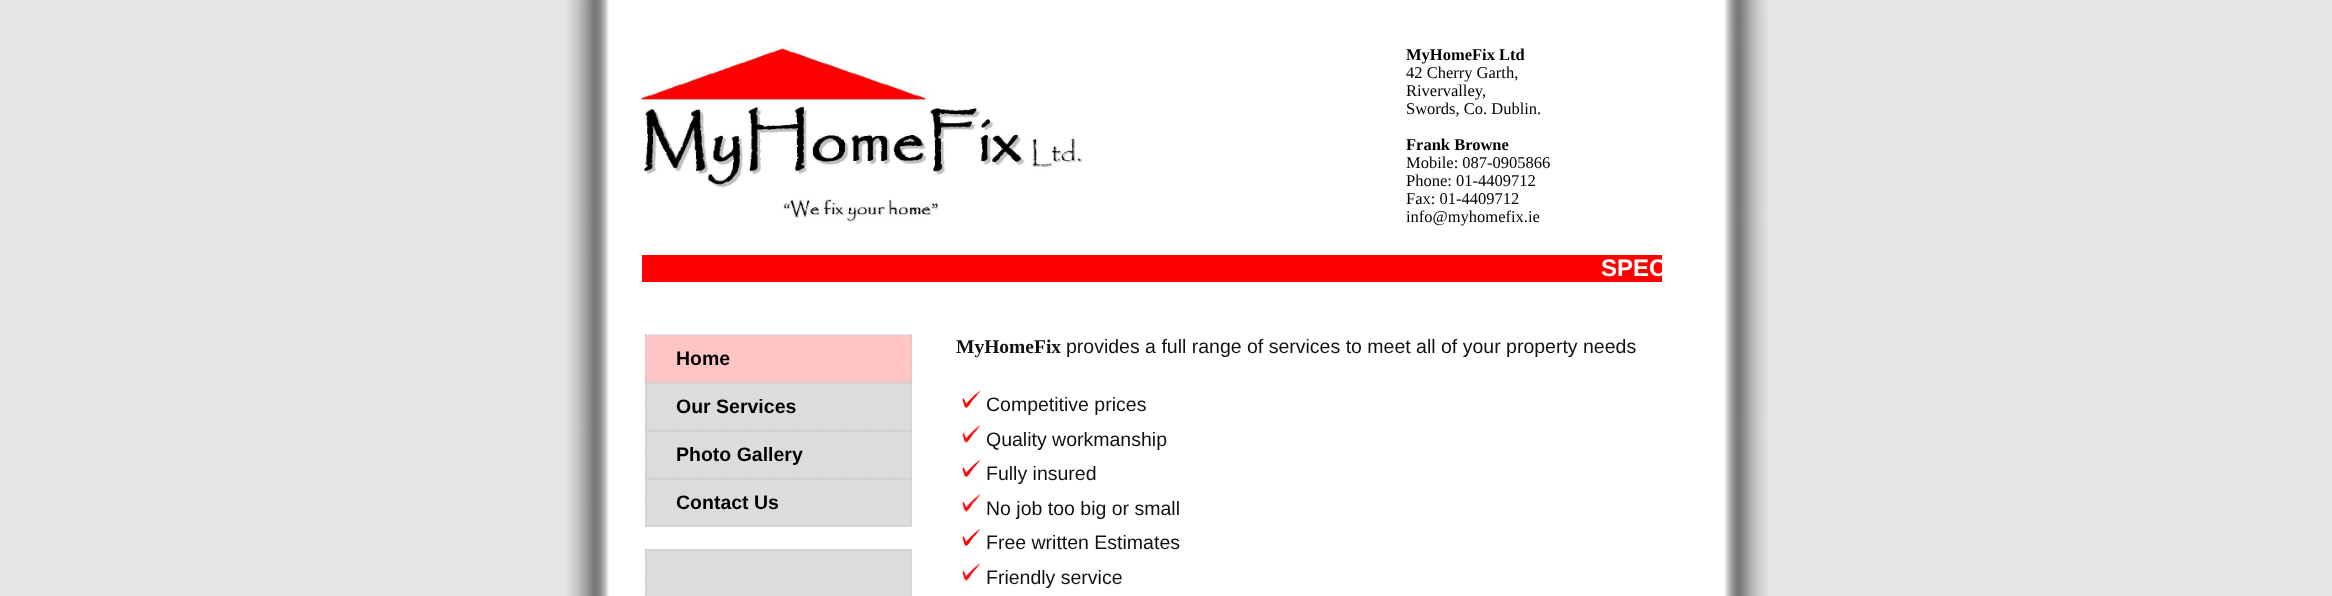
<!DOCTYPE html>
<meta charset="utf-8">
<style>body { margin: 0 } canvas { display: block }</style>
<canvas id="canvas" width="2332" height="596"></canvas>
<script type="module">
  const canvas = document.getElementById("canvas");
  const g = canvas.getContext("2d");
  g.miterLimit = 4;
  g.fontKerning = "normal";
  function drawText(s, x, y, [font, color]) {
    g.font = font;
    g.fillStyle = color;
    g.fillText(s, x, y);
  }
  function fillBox(x, y, w, h, color) {
    g.fillStyle = color;
    g.fillRect(x, y, w, h);
  }
  async function drawPicture(src, x, y, w, h) {
    const img = new Image();
    img.src = src;
    await img.decode();
    g.drawImage(img, x, y, w, h);
  }

  const s1 = ["bold 16.5px Liberation Serif", "#000000"];
  const s2 = ["16.5px Liberation Serif", "#000000"];
  const s3 = ["bold 24px Liberation Sans", "#FFFFFF"];
  const s4 = ["bold 19.5px Liberation Sans", "#000000"];
  const s5 = ["bold 19.5px Liberation Serif", "#111111"];
  const s6 = ["19.5px Liberation Sans", "#111111"];

  fillBox(0, 0, 2332, 596, "#E6E6E6");
  await drawPicture("pic1.png", 566, 0, 1202, 596);
  await drawPicture("pic2.png", 640, 45, 443, 178);
  drawText("MyHomeFix Ltd", 1406, 60, s1);
  drawText("42 Cherry Garth,", 1406, 78, s2);
  drawText("Rivervalley,", 1406, 96, s2);
  drawText("Swords, Co. Dublin.", 1406, 114, s2);
  drawText("Frank Browne", 1406, 150, s1);
  drawText("Mobile: 087-0905866", 1406, 168, s2);
  drawText("Phone: 01-4409712", 1406, 186, s2);
  drawText("Fax: 01-4409712", 1406, 204, s2);
  drawText("info@myhomefix.ie", 1406, 222, s2);
  fillBox(642, 255, 1020, 27, "#FE0000");
  g.save();
  g.beginPath();
  g.rect(642, 255, 1020, 27);
  g.clip();
  drawText("SPEC", 1601, 276, s3);
  g.restore();
  fillBox(645, 335, 267, 48, "#FFC4C3");
  g.beginPath();
  g.moveTo(645, 335);
  g.lineTo(912, 335);
  g.strokeStyle = "#CACACA";
  g.lineWidth = 1.5;
  g.setLineDash([1.5, 1.5]);
  g.stroke();
  g.beginPath();
  g.moveTo(911, 334.5);
  g.lineTo(911, 382.5);
  g.stroke();
  g.beginPath();
  g.moveTo(645, 382);
  g.lineTo(912, 382);
  g.stroke();
  g.beginPath();
  g.moveTo(646, 334.5);
  g.lineTo(646, 382.5);
  g.stroke();
  drawText("Home", 676, 365, s4);
  fillBox(645, 383, 267, 144, "#DCDCDC");
  g.beginPath();
  g.moveTo(645, 383);
  g.lineTo(912, 383);
  g.stroke();
  g.beginPath();
  g.moveTo(911, 382.5);
  g.lineTo(911, 430.5);
  g.stroke();
  g.beginPath();
  g.moveTo(645, 430);
  g.lineTo(912, 430);
  g.stroke();
  g.beginPath();
  g.moveTo(646, 382.5);
  g.lineTo(646, 430.5);
  g.stroke();
  drawText("Our Services", 676, 413, s4);
  g.beginPath();
  g.moveTo(645, 431);
  g.lineTo(912, 431);
  g.stroke();
  g.beginPath();
  g.moveTo(911, 430.5);
  g.lineTo(911, 478.5);
  g.stroke();
  g.beginPath();
  g.moveTo(645, 478);
  g.lineTo(912, 478);
  g.stroke();
  g.beginPath();
  g.moveTo(646, 430.5);
  g.lineTo(646, 478.5);
  g.stroke();
  drawText("Photo Gallery", 676, 461, s4);
  g.beginPath();
  g.moveTo(645, 479);
  g.lineTo(912, 479);
  g.stroke();
  g.beginPath();
  g.moveTo(911, 478.5);
  g.lineTo(911, 526.5);
  g.stroke();
  g.beginPath();
  g.moveTo(645, 526);
  g.lineTo(912, 526);
  g.stroke();
  g.beginPath();
  g.moveTo(646, 478.5);
  g.lineTo(646, 526.5);
  g.stroke();
  drawText("Contact Us", 676, 509, s4);
  fillBox(645, 549, 267, 47, "#DCDCDC");
  g.beginPath();
  g.moveTo(645, 550);
  g.lineTo(912, 550);
  g.stroke();
  g.beginPath();
  g.moveTo(911, 549);
  g.lineTo(911, 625.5);
  g.stroke();
  g.beginPath();
  g.moveTo(646, 549);
  g.lineTo(646, 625.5);
  g.stroke();
  drawText("MyHomeFix", 956, 353, s5);
  drawText("provides a full range of services to meet all of your property needs", 1066, 353, s6);
  await drawPicture("pic3.png", 962, 391, 18, 17);
  drawText("Competitive prices", 986, 411, s6);
  await drawPicture("pic4.png", 962, 425, 18, 18);
  drawText("Quality workmanship", 986, 446, s6);
  await drawPicture("pic3.png", 962, 460, 18, 17);
  drawText("Fully insured", 986, 480, s6);
  await drawPicture("pic4.png", 962, 494, 18, 18);
  drawText("No job too big or small", 986, 515, s6);
  await drawPicture("pic3.png", 962, 529, 18, 17);
  drawText("Free written Estimates", 986, 549, s6);
  await drawPicture("pic4.png", 962, 563, 18, 18);
  drawText("Friendly service", 986, 584, s6);
</script>
